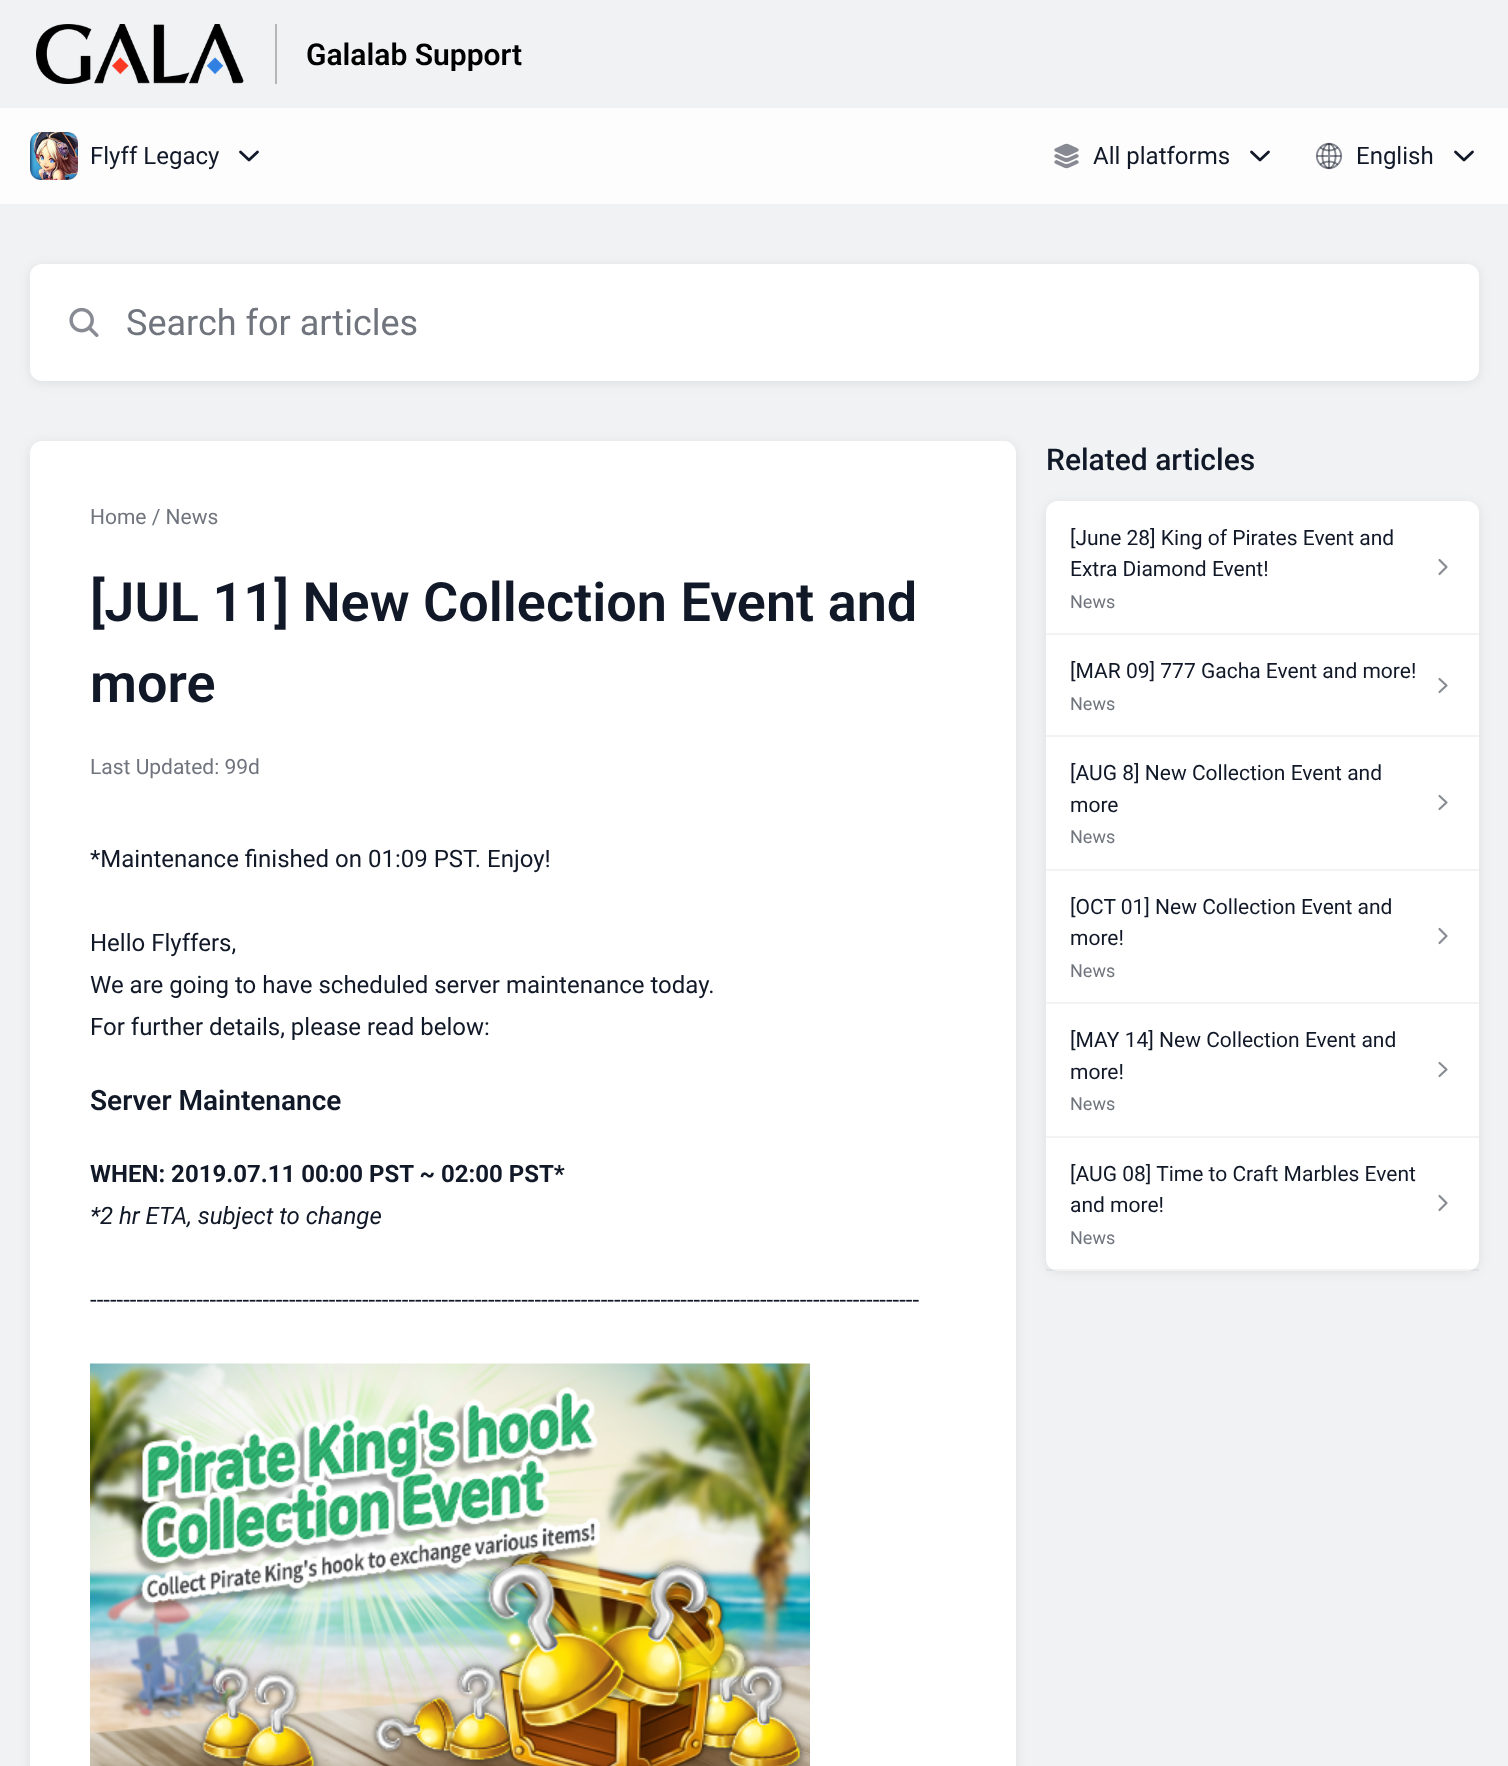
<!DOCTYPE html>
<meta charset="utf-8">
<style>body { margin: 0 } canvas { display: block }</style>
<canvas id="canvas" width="1508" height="1766"></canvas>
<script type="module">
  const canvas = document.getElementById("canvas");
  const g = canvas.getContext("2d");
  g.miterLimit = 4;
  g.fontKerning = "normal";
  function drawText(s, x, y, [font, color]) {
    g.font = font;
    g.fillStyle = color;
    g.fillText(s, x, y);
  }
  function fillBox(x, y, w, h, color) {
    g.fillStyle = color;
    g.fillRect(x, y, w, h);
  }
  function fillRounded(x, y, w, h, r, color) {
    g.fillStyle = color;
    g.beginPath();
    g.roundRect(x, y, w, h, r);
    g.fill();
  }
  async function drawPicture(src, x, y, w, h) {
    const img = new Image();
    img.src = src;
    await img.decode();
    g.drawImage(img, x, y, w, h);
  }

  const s1 = ["600 30px Roboto", "#000000"];
  const s2 = ["24px Roboto", "#111827"];
  const s3 = ["36px Roboto", "#70747D"];
  const s4 = ["21px Roboto", "#70747D"];
  const s5 = ["600 54px Roboto", "#111827"];
  const s6 = ["600 28px Roboto", "#111827"];
  const s7 = ["bold 24px Roboto", "#111827"];
  const s8 = ["italic 24px Roboto", "#111827"];
  const s9 = ["500 30px Roboto", "#111827"];
  const s10 = ["21px Roboto", "#111827"];
  const s11 = ["18px Roboto", "#70747D"];

  fillBox(0, 0, 1508, 1766, "#FDFDFD");
  fillBox(0, 0, 1508, 108, "#F0F2F4");
  fillBox(275, 24, 2, 60, "#B4B6B7");
  await drawPicture("pic1.png", 36, 24, 208, 60);
  drawText("Galalab Support", 306, 65, s1);
  await drawPicture("pic2.png", 30, 132, 48, 48);
  drawText("Flyff Legacy", 90, 164, s2);
  g.beginPath();
  g.moveTo(240.5, 152);
  g.lineTo(249, 160);
  g.lineTo(257.5, 152);
  g.strokeStyle = "#111827";
  g.lineWidth = 2.8;
  g.lineCap = "round";
  g.lineJoin = "round";
  g.stroke();
  await drawPicture("pic3.png", 1054, 143, 25, 26);
  drawText("All platforms", 1093, 164, s2);
  g.beginPath();
  g.moveTo(1251.5, 152);
  g.lineTo(1260, 160);
  g.lineTo(1268.5, 152);
  g.stroke();
  await drawPicture("pic4.png", 1315, 142, 28, 28);
  drawText("English", 1356, 164, s2);
  g.beginPath();
  g.moveTo(1455.5, 152);
  g.lineTo(1464, 160);
  g.lineTo(1472.5, 152);
  g.stroke();
  fillBox(0, 204, 1508, 1562, "#F0F2F4");
  g.fillStyle = "rgba(0, 0, 0, 0.08)";
  g.filter = "blur(6px)";
  g.beginPath();
  g.roundRect(30, 266, 1449, 117, 12);
  g.fill();
  g.filter = "none";
  fillRounded(30, 264, 1449, 117, 12, "#FFFFFF");
  await drawPicture("pic5.png", 69, 307, 30, 30);
  drawText("Search for articles", 126, 335, s3);
  g.fillStyle = "rgba(0, 0, 0, 0.08)";
  g.filter = "blur(6px)";
  g.beginPath();
  g.roundRect(30, 443, 986, 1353, 12);
  g.fill();
  g.filter = "none";
  g.fillStyle = "#FFFFFF";
  g.beginPath();
  g.moveTo(42, 441);
  g.lineTo(1004, 441);
  g.bezierCurveTo(1010.5, 441, 1016, 446.5, 1016, 453);
  g.lineTo(1016, 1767);
  g.lineTo(30, 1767);
  g.lineTo(30, 453);
  g.bezierCurveTo(30, 446.5, 35.5, 441, 42, 441);
  g.closePath();
  g.fill();
  drawText("Home / News", 90, 524, s4);
  drawText("[JUL 11] New Collection Event and", 90, 621, s5);
  drawText("more", 90, 702, s5);
  drawText("Last Updated: 99d", 90, 774, s4);
  drawText("*Maintenance finished on 01:09 PST. Enjoy!", 90, 867, s2);
  drawText("Hello Flyffers,", 90, 951, s2);
  drawText("We are going to have scheduled server maintenance today.", 90, 993, s2);
  drawText("For further details, please read below:", 90, 1035, s2);
  drawText("Server Maintenance", 90, 1110, s6);
  drawText("WHEN: 2019.07.11 00:00 PST ~ 02:00 PST*", 90, 1182, s7);
  drawText("*2 hr ETA, subject to change", 90, 1224, s8);
  drawText("-----------------------------------------------------------------------------------------------------------------------------", 90, 1308, s2);
  await drawPicture("pic6.png", 90, 1363, 720, 403);
  drawText("Related articles", 1046, 470, s9);
  g.fillStyle = "rgba(0, 0, 0, 0.08)";
  g.filter = "blur(6px)";
  g.beginPath();
  g.roundRect(1046, 503, 433, 769, 12);
  g.fill();
  g.filter = "none";
  fillRounded(1046, 501, 433, 770, 12, "#FFFFFF");
  fillBox(1046, 633, 433, 2, "#F3F3F4");
  drawText("[June 28] King of Pirates Event and", 1070, 545, s10);
  drawText("Extra Diamond Event!", 1070, 576, s10);
  drawText("News", 1070, 608, s11);
  g.beginPath();
  g.moveTo(1439.5, 560);
  g.lineTo(1446.5, 567);
  g.lineTo(1439.5, 574);
  g.strokeStyle = "#888C93";
  g.lineWidth = 2.2;
  g.stroke();
  fillBox(1046, 735, 433, 2, "#F3F3F4");
  drawText("[MAR 09] 777 Gacha Event and more!", 1070, 678, s10);
  drawText("News", 1070, 710, s11);
  g.beginPath();
  g.moveTo(1439.5, 679);
  g.lineTo(1446.5, 685.5);
  g.lineTo(1439.5, 692);
  g.stroke();
  fillBox(1046, 869, 433, 2, "#F3F3F4");
  drawText("[AUG 8] New Collection Event and", 1070, 780, s10);
  drawText("more", 1070, 812, s10);
  drawText("News", 1070, 843, s11);
  g.beginPath();
  g.moveTo(1439.5, 796);
  g.lineTo(1446.5, 802.5);
  g.lineTo(1439.5, 809);
  g.stroke();
  fillBox(1046, 1002, 433, 2, "#F3F3F4");
  drawText("[OCT 01] New Collection Event and", 1070, 914, s10);
  drawText("more!", 1070, 945, s10);
  drawText("News", 1070, 977, s11);
  g.beginPath();
  g.moveTo(1439.5, 929);
  g.lineTo(1446.5, 936);
  g.lineTo(1439.5, 943);
  g.stroke();
  fillBox(1046, 1136, 433, 2, "#F3F3F4");
  drawText("[MAY 14] New Collection Event and", 1070, 1047, s10);
  drawText("more!", 1070, 1079, s10);
  drawText("News", 1070, 1110, s11);
  g.beginPath();
  g.moveTo(1439.5, 1063);
  g.lineTo(1446.5, 1069.5);
  g.lineTo(1439.5, 1076);
  g.stroke();
  fillBox(1046, 1269, 433, 2, "rgba(17, 24, 39, 0.05)");
  drawText("[AUG 08] Time to Craft Marbles Event", 1070, 1181, s10);
  drawText("and more!", 1070, 1212, s10);
  drawText("News", 1070, 1244, s11);
  g.beginPath();
  g.moveTo(1439.5, 1196);
  g.lineTo(1446.5, 1203);
  g.lineTo(1439.5, 1210);
  g.stroke();
</script>
